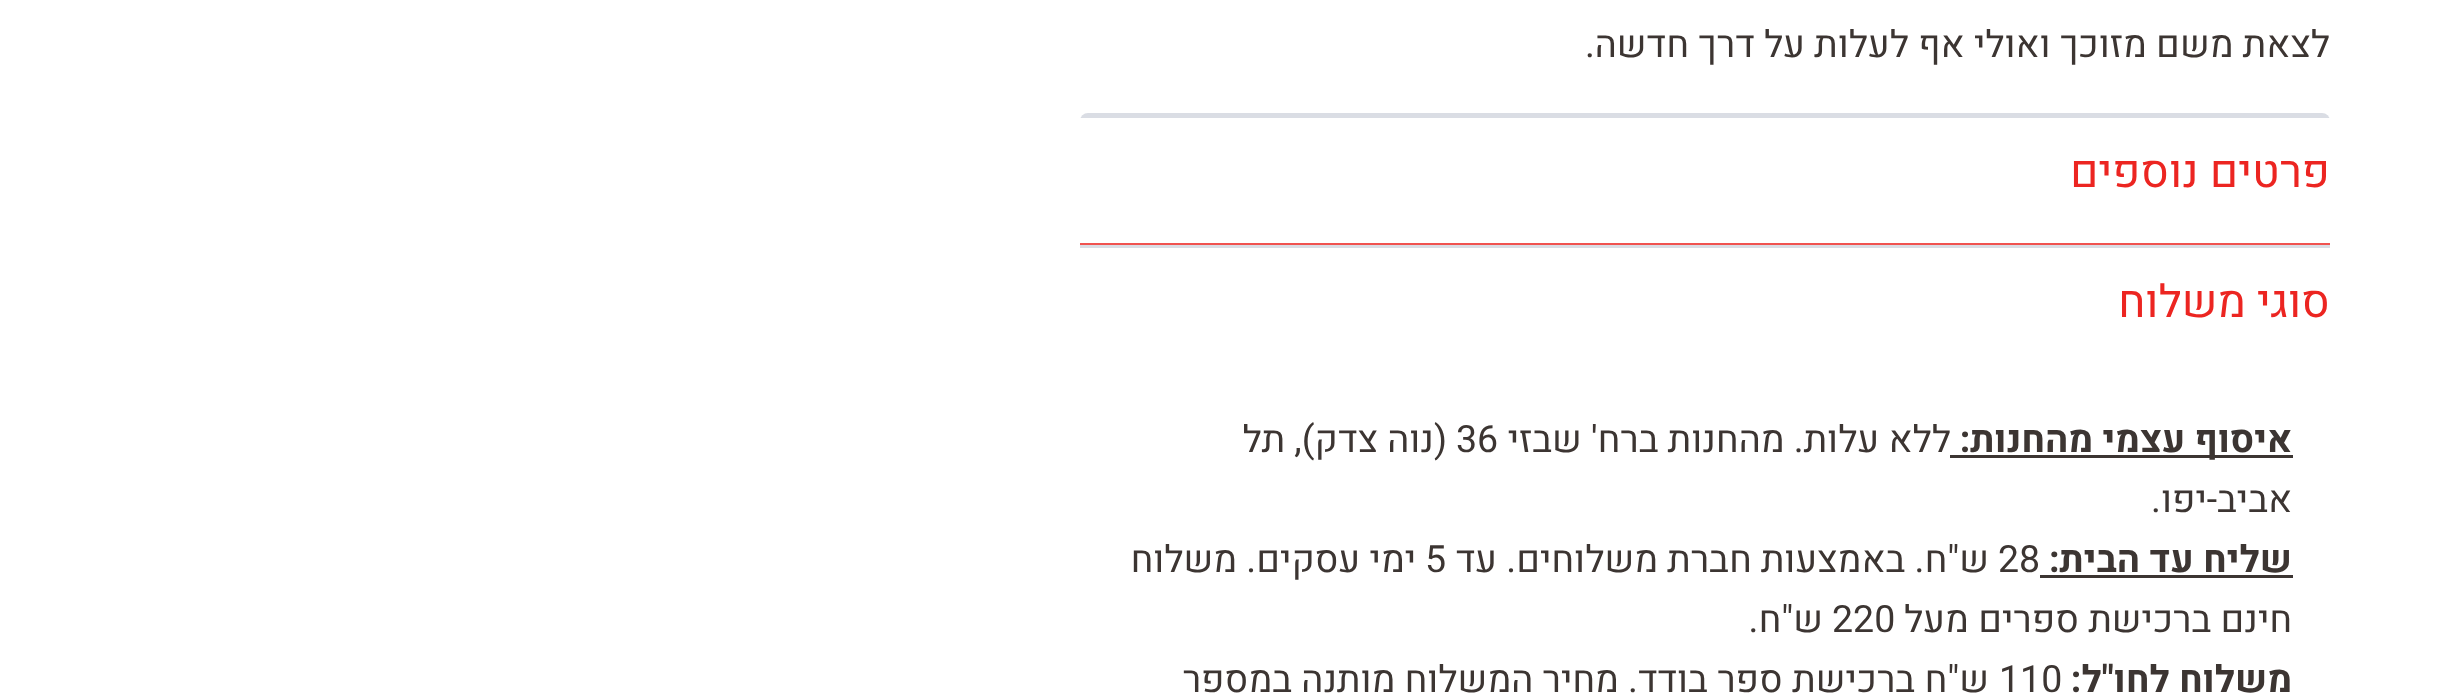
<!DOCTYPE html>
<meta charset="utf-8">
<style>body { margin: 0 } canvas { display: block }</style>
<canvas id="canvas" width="2455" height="694"></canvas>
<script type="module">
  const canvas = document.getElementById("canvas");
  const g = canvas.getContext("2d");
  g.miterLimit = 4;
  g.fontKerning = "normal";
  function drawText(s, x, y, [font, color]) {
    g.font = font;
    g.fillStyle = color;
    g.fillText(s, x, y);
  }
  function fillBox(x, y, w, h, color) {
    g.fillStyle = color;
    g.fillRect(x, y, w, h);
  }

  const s1 = ["37.5px Heebo", "#3C3532"];
  const s2 = ["45px Heebo", "#EC2521"];
  const s3 = ["bold 37.5px Heebo", "#3C3532"];

  fillBox(0, 0, 2455, 694, "#FFFFFF");
  g.direction = "rtl";
  drawText("לצאת משם מזוכך ואולי אף לעלות על דרך חדשה.", 2330, 57, s1);
  g.save();
  g.beginPath();
  g.roundRect(1080, 113, 1250, 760, 8);
  g.clip();
  fillBox(1080, 113, 1250, 5, "#DADDE4");
  g.restore();
  fillBox(1080, 243, 1250, 2, "#F05350");
  drawText("פרטים נוספים", 2330, 187, s2);
  fillBox(1080, 245, 1250, 3, "#DADDE4");
  drawText("סוגי משלוח", 2330, 317, s2);
  fillBox(1950, 455, 343, 3, "#3C3532");
  drawText("איסוף עצמי מהחנות:", 2292, 452, s3);
  drawText("ללא עלות. מהחנות ברח' שבזי", 1951, 452, s1);
  g.direction = "ltr";
  drawText("36", 1456, 452, s1);
  g.direction = "rtl";
  drawText("(נוה צדק), תל", 1447, 452, s1);
  drawText("אביב-יפו.", 2292, 512, s1);
  drawText("שליח עד הבית:", 2292, 572, s3);
  fillBox(2040, 575, 253, 3, "#3C3532");
  g.direction = "ltr";
  drawText("28", 1998, 572, s1);
  g.direction = "rtl";
  drawText("ש\"ח. באמצעות חברת משלוחים. עד", 1989, 572, s1);
  g.direction = "ltr";
  drawText("5", 1425, 572, s1);
  g.direction = "rtl";
  drawText("ימי עסקים. משלוח", 1416, 572, s1);
  drawText("חינם ברכישת ספרים מעל", 2292, 632, s1);
  g.direction = "ltr";
  drawText("220", 1832, 632, s1);
  g.direction = "rtl";
  drawText("ש\"ח.", 1823, 632, s1);
  drawText("משלוח לחו\"ל:", 2292, 692, s3);
  g.direction = "ltr";
  drawText("110", 1999, 692, s1);
  g.direction = "rtl";
  drawText("ש\"ח ברכישת ספר בודד. מחיר המשלוח מותנה במספר", 1989, 692, s1);
</script>
